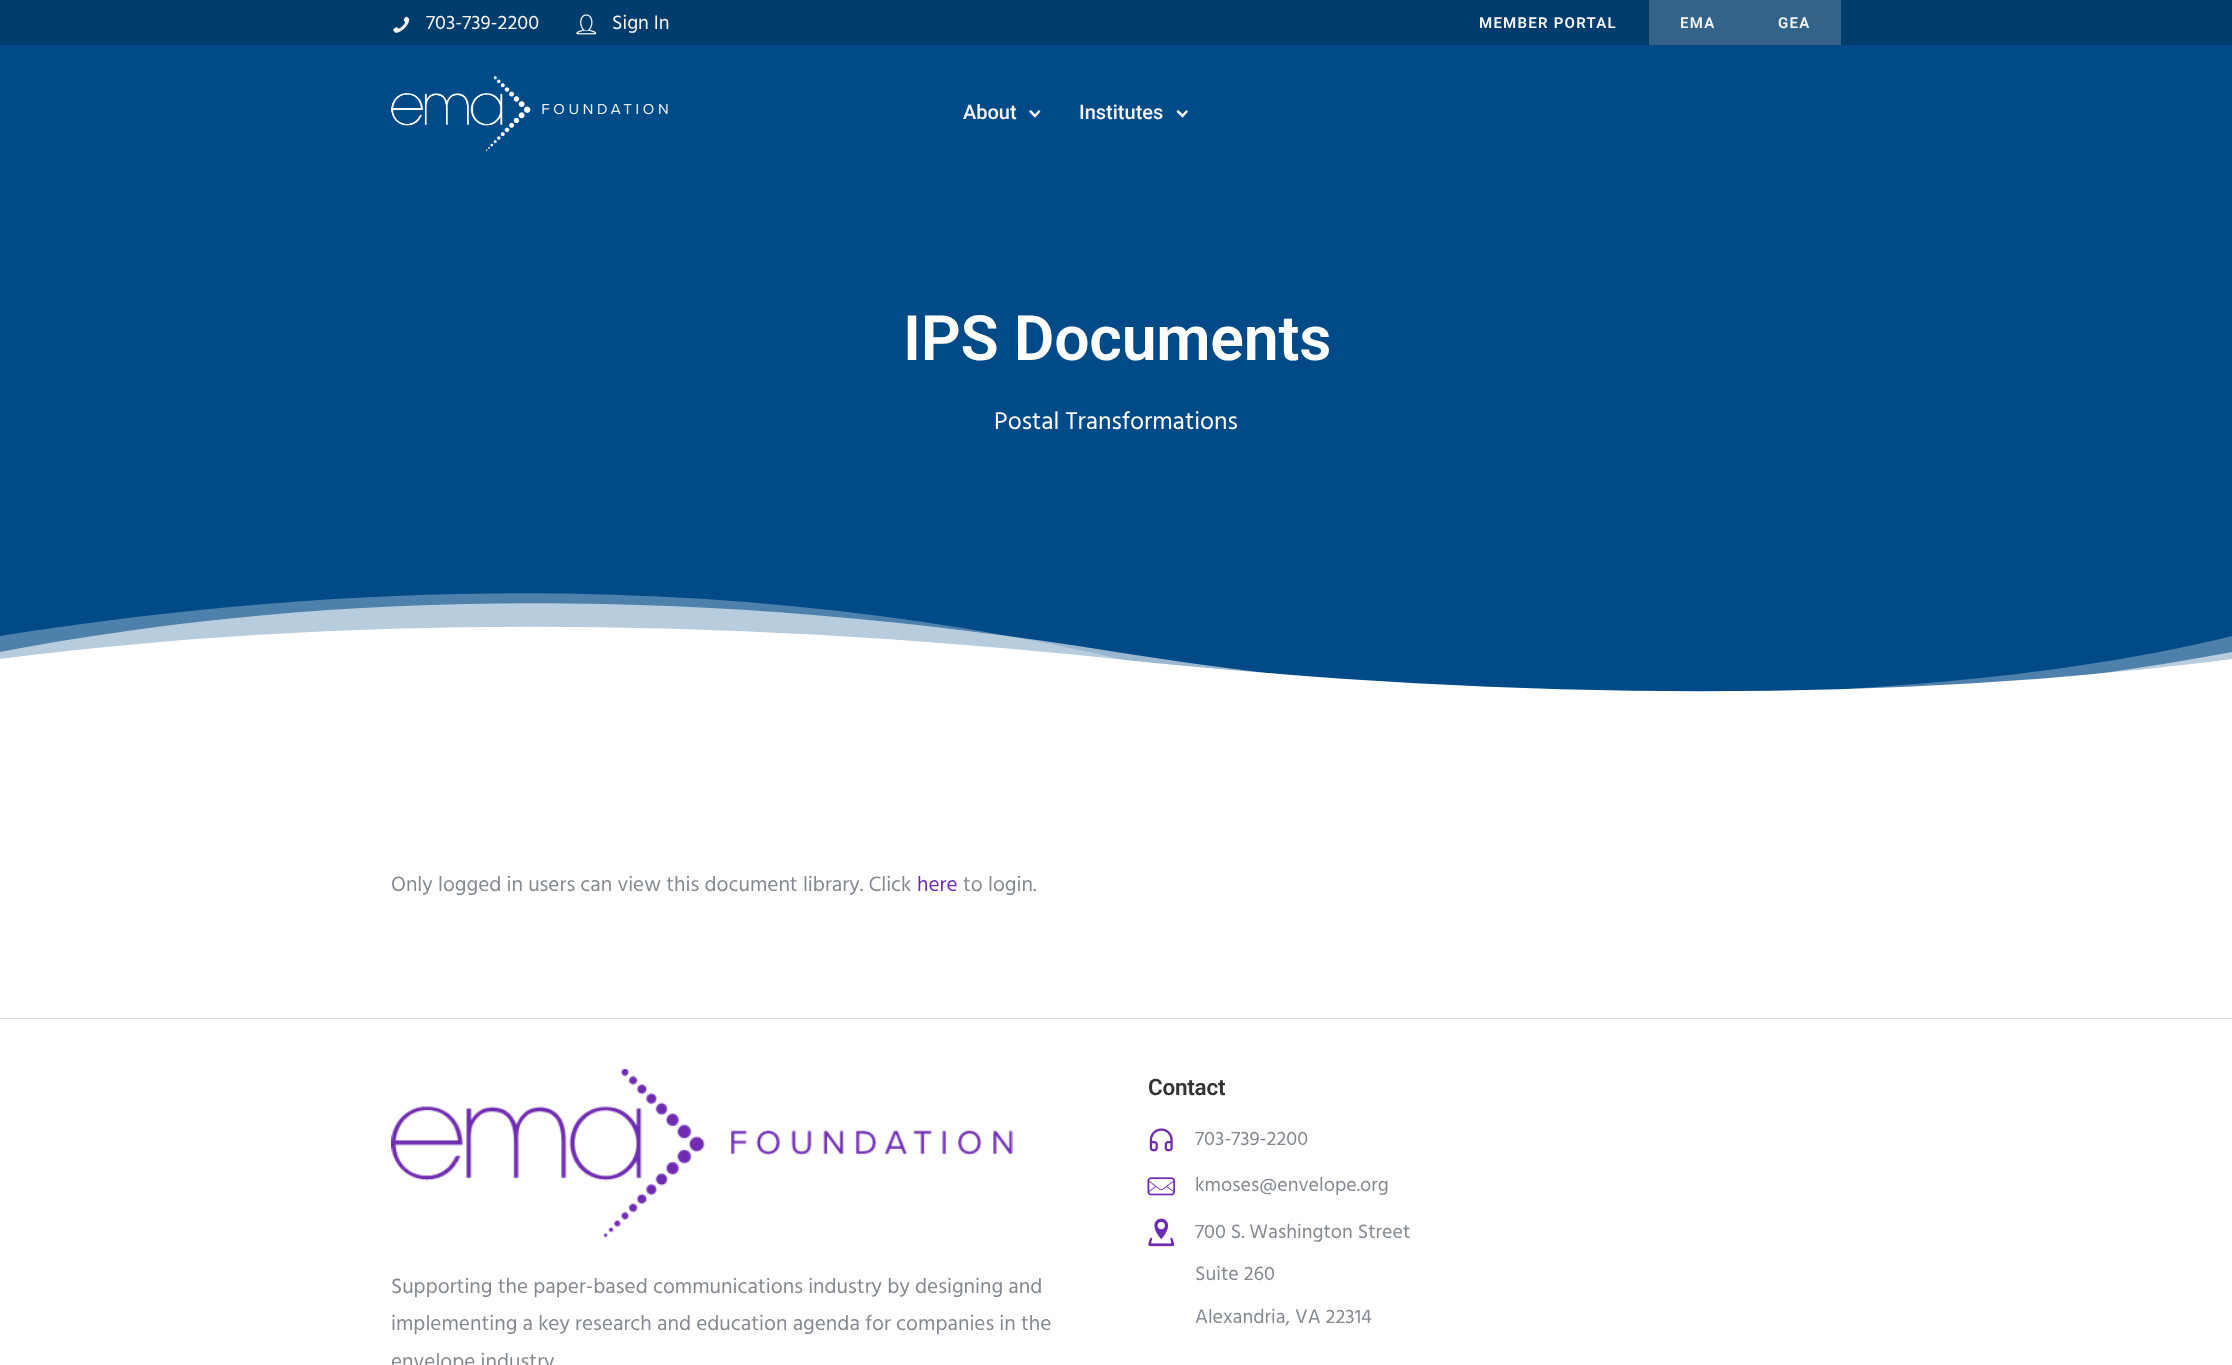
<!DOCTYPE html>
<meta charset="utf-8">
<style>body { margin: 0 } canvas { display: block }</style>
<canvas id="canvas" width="2232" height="1365"></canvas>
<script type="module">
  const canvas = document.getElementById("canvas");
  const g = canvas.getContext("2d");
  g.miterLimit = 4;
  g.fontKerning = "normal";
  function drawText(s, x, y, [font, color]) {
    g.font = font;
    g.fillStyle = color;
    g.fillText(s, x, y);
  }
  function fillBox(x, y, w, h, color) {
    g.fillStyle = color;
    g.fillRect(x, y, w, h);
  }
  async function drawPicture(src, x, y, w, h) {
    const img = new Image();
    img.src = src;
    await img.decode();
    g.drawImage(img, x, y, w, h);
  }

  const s1 = ["20px Hind", "#F5F5F5"];
  const s2 = ["600 15px Roboto", "#F5F5F5"];
  const s3 = ["500 20px Roboto", "#F5F5F5"];
  const s4 = ["600 62.5px Roboto", "#FFFFFF"];
  const s5 = ["25px Hind", "#FFFFFF"];
  const s6 = ["21.25px Hind", "#848991"];
  const s7 = ["21.25px Hind", "#6F2BB2"];
  const s8 = ["600 22.5px Roboto", "#313233"];
  const s9 = ["20px Hind", "#848991"];

  fillBox(0, 0, 2232, 1365, "#FFFFFF");
  fillBox(0, 0, 2232, 45, "#003C6C");
  await drawPicture("pic1.png", 393, 16, 17, 17);
  drawText("703-739-2200", 426, 29, s1);
  await drawPicture("pic2.png", 576, 14, 21, 21);
  drawText("Sign In", 612, 29, s1);
  g.letterSpacing = "1.25px";
  drawText("MEMBER PORTAL", 1479, 28, s2);
  fillBox(1649, 0, 192, 45, "#336389");
  drawText("EMA", 1680, 28, s2);
  drawText("GEA", 1778, 28, s2);
  fillBox(0, 45, 2232, 647, "#004B87");
  await drawPicture("pic3.png", 391, 76, 277, 75);
  g.letterSpacing = "0px";
  drawText("About", 963, 119, s3);
  g.beginPath();
  g.moveTo(1039, 111.5);
  g.lineTo(1035, 116);
  g.lineTo(1030.5, 111.5);
  g.strokeStyle = "#F5F5F5";
  g.lineWidth = 2.5;
  g.lineCap = "round";
  g.stroke();
  drawText("Institutes", 1079, 119, s3);
  g.beginPath();
  g.moveTo(1186.5, 111.5);
  g.lineTo(1182.5, 116);
  g.lineTo(1178, 111.5);
  g.stroke();
  g.letterSpacing = "-0.25px";
  drawText("IPS Documents", 903, 360, s4);
  g.letterSpacing = "0px";
  drawText("Postal Transformations", 994, 429, s5);
  g.fillStyle = "#4D81AB";
  g.beginPath();
  g.moveTo(2232, 636);
  g.bezierCurveTo(1996, 694, 1657, 710, 1216, 683);
  g.bezierCurveTo(846, 582, 441, 566, 0, 636);
  g.lineTo(0, 748);
  g.lineTo(2232, 748);
  g.closePath();
  g.fill("evenodd");
  g.fillStyle = "rgba(255, 255, 255, 0.6)";
  g.beginPath();
  g.moveTo(2232, 652);
  g.bezierCurveTo(1892, 716, 1520, 716, 1116, 652);
  g.bezierCurveTo(712, 587, 340, 587, 0, 652);
  g.lineTo(0, 748);
  g.lineTo(2232, 748);
  g.closePath();
  g.fill("evenodd");
  g.fillStyle = "#FFFFFF";
  g.beginPath();
  g.moveTo(2232, 659);
  g.bezierCurveTo(1897, 702, 1525, 702, 1116, 659);
  g.bezierCurveTo(708, 616, 336, 616, 0, 659);
  g.lineTo(0, 755);
  g.lineTo(2232, 755);
  g.closePath();
  g.fill("evenodd");
  drawText("Only logged in users can view this document library. Click", 391, 891, s6);
  drawText("here", 917, 891, s7);
  drawText("to login.", 963, 891, s6);
  fillBox(0, 1018, 2232, 1, "#DFDFDF");
  await drawPicture("pic4.png", 391, 1069, 623, 169);
  drawText("Supporting the paper-based communications industry by designing and", 391, 1293, s6);
  drawText("implementing a key research and education agenda for companies in the", 391, 1330, s6);
  drawText("envelope industry", 391, 1368, s6);
  g.letterSpacing = "-0.25px";
  drawText("Contact", 1148, 1095, s8);
  await drawPicture("pic5.png", 1149, 1128, 24, 24);
  g.letterSpacing = "0px";
  drawText("703-739-2200", 1195, 1145, s9);
  await drawPicture("pic6.png", 1147, 1177, 28, 19);
  drawText("kmoses@envelope.org", 1195, 1191, s9);
  await drawPicture("pic7.png", 1148, 1218, 27, 29);
  drawText("700 S. Washington Street", 1195, 1238, s9);
  drawText("Suite 260", 1195, 1280, s9);
  drawText("Alexandria, VA 22314", 1195, 1323, s9);
</script>
